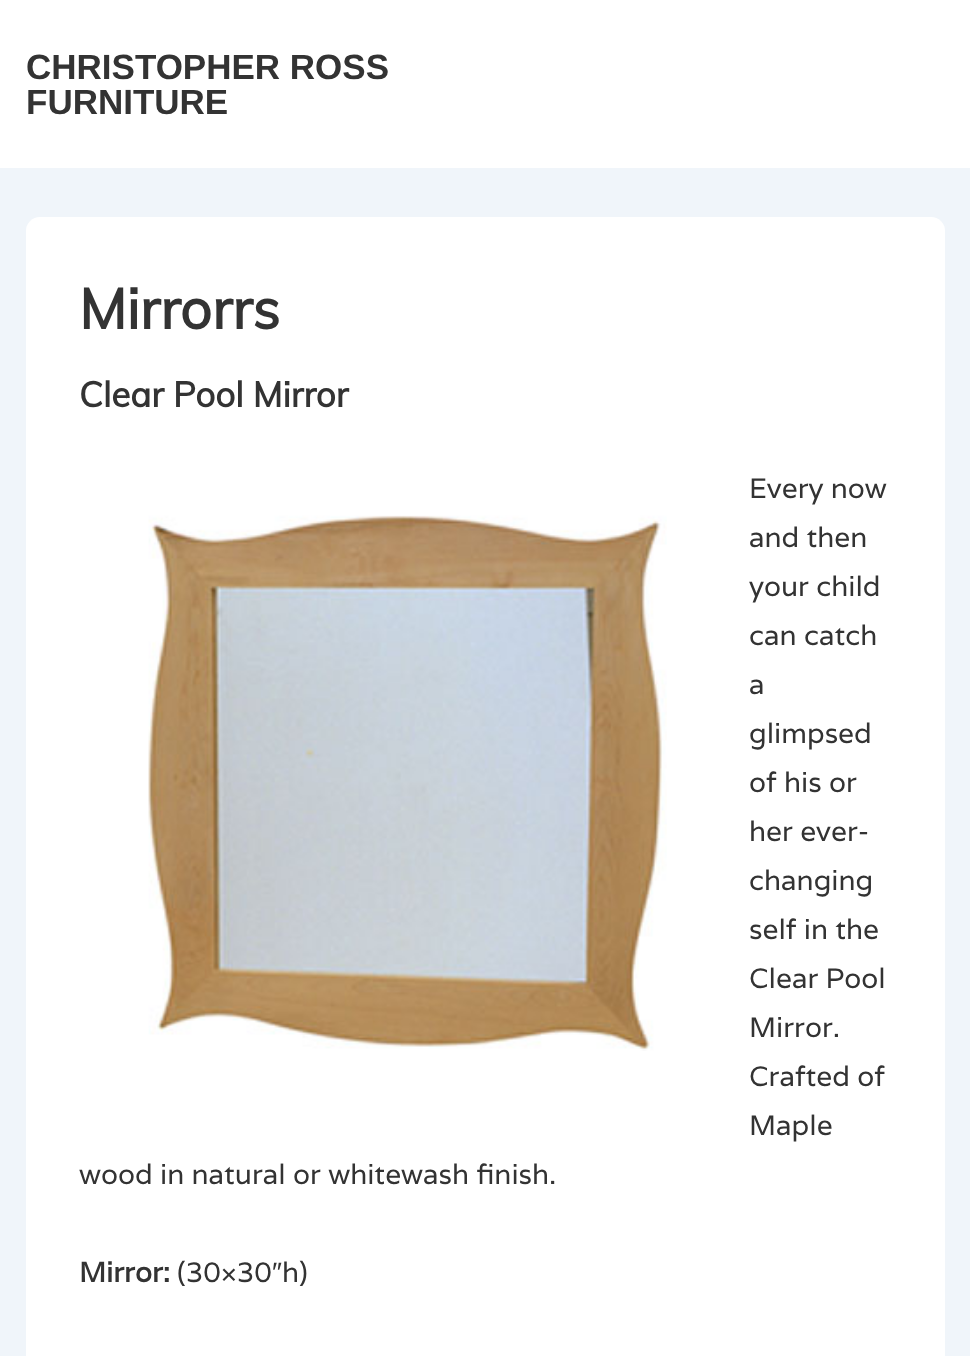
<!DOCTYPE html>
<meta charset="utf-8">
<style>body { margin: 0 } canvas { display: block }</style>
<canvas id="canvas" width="970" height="1356"></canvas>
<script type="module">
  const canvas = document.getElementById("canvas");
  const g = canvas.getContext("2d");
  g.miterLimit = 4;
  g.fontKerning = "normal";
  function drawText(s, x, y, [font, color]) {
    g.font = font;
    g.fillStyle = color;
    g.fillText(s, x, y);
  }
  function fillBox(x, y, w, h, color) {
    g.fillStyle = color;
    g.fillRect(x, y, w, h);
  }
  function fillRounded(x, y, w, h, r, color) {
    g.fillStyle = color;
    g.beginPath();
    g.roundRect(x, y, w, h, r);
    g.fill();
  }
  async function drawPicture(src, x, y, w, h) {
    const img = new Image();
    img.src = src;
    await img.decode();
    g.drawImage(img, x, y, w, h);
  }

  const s1 = ["bold 35px Liberation Sans", "#333333"];
  const s2 = ["bold 56px Muli", "#333333"];
  const s3 = ["bold 35px Muli", "#333333"];
  const s4 = ["28px Varela", "#333333"];
  const s5 = ["bold 28px Varela", "#333333"];
  const s6 = ["28px Liberation Sans", "#333333"];

  fillBox(0, 0, 970, 1356, "#F0F5FA");
  fillBox(0, 0, 970, 168, "#FFFFFF");
  drawText("CHRISTOPHER ROSS", 26, 79, s1);
  drawText("FURNITURE", 26, 114, s1);
  fillRounded(26, 217, 919, 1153, 14, "#FFFFFF");
  drawText("Mirrorrs", 79, 329, s2);
  drawText("Clear Pool Mirror", 79, 407, s3);
  drawText("Every now", 749, 498, s4);
  drawText("and then", 749, 547, s4);
  drawText("your child", 749, 596, s4);
  drawText("can catch", 749, 645, s4);
  drawText("a", 749, 694, s4);
  drawText("glimpsed", 749, 743, s4);
  drawText("of his or", 749, 792, s4);
  drawText("her ever-", 749, 841, s4);
  drawText("changing", 749, 890, s4);
  drawText("self in the", 749, 939, s4);
  drawText("Clear Pool", 749, 988, s4);
  drawText("Mirror.", 749, 1037, s4);
  drawText("Crafted of", 749, 1086, s4);
  drawText("Maple", 749, 1135, s4);
  drawText("wood in natural or whitewash finish.", 79, 1184, s4);
  await drawPicture("pic1.png", 148, 515, 519, 536);
  drawText("Mirror:", 79, 1282, s5);
  drawText("(30×30", 177, 1282, s4);
  drawText("″", 272, 1282, s6);
  drawText("h)", 282, 1282, s4);
</script>
